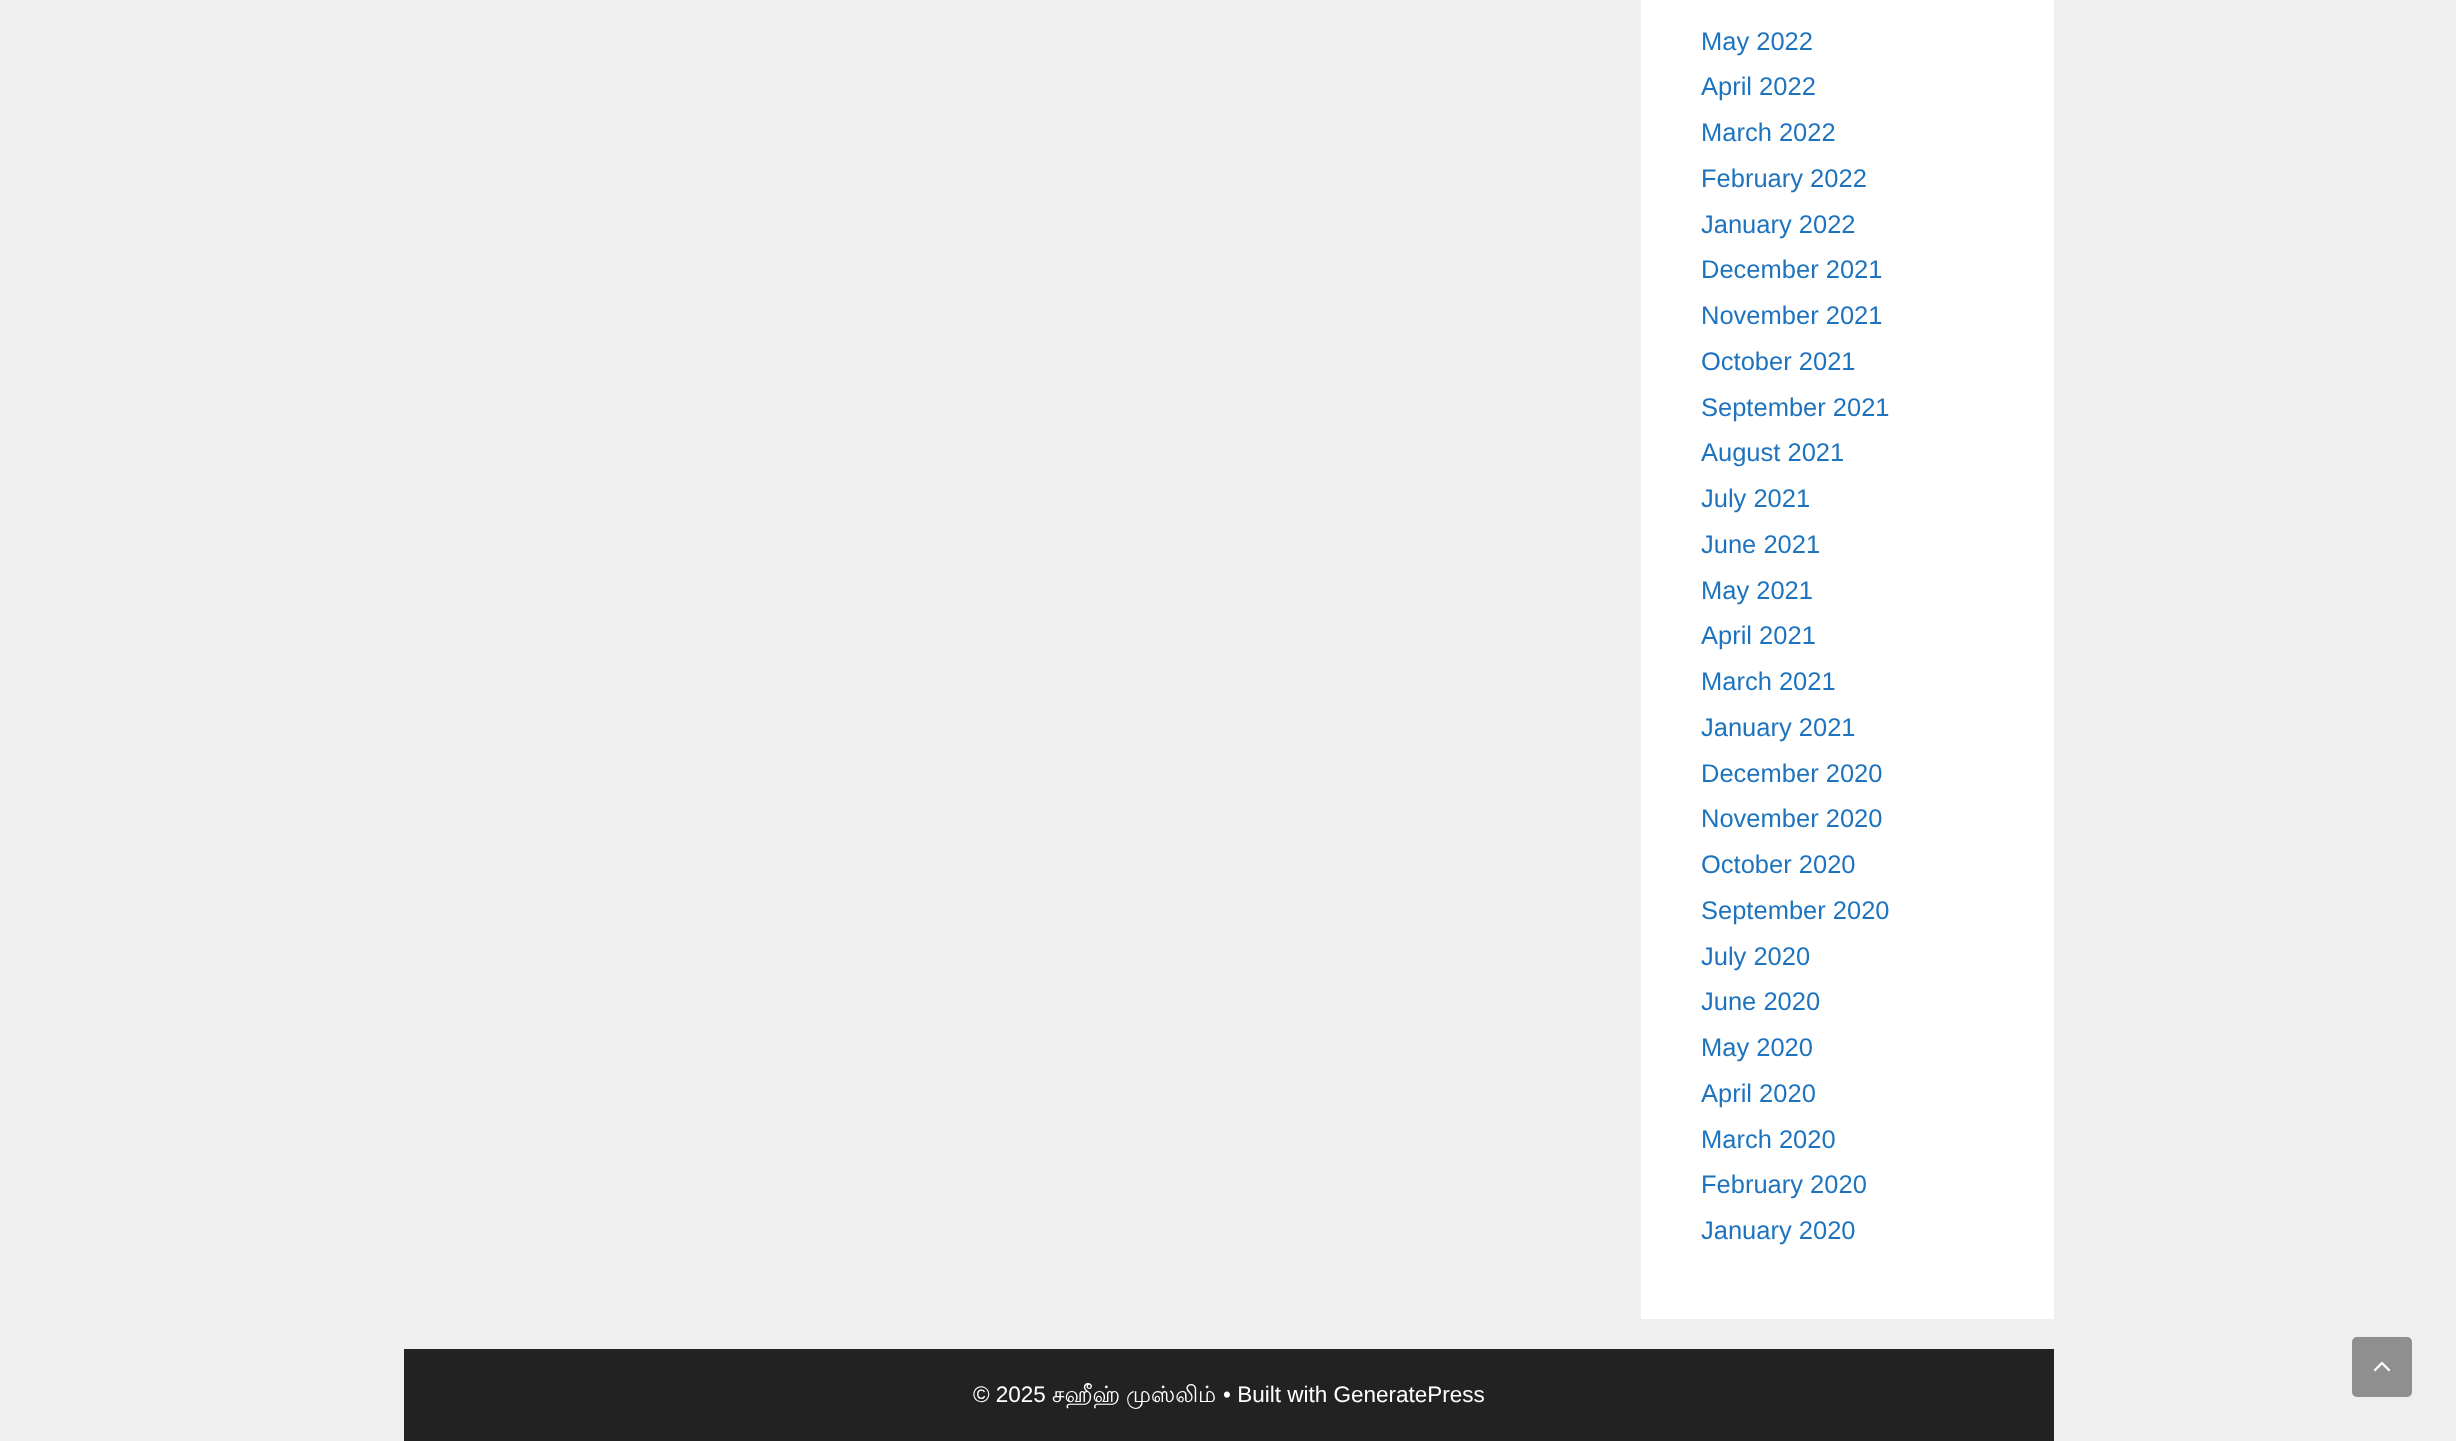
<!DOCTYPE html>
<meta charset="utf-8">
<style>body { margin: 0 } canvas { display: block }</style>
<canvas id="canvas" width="2456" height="1441"></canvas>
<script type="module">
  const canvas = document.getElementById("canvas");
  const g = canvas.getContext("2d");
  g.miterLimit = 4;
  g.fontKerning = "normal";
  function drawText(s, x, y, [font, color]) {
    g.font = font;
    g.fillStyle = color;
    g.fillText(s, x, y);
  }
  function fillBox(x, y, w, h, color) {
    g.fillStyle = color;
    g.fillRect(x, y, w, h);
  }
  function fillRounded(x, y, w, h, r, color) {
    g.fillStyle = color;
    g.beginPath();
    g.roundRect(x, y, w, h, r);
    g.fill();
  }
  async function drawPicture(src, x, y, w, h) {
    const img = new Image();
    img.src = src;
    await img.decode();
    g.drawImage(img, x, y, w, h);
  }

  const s1 = ["25.5px Liberation Sans", "#1E73BE"];
  const s2 = ["22.5px Liberation Sans", "#FFFFFF"];
  const s3 = ["22.5px Lohit Tamil", "#FFFFFF"];

  fillBox(0, 0, 2456, 1441, "#EFEFEF");
  fillBox(1641, 0, 413, 1319, "#FFFFFF");
  drawText("May 2022", 1701, 50, s1);
  drawText("April 2022", 1701, 95, s1);
  drawText("March 2022", 1701, 141, s1);
  drawText("February 2022", 1701, 187, s1);
  drawText("January 2022", 1701, 233, s1);
  drawText("December 2021", 1701, 278, s1);
  drawText("November 2021", 1701, 324, s1);
  drawText("October 2021", 1701, 370, s1);
  drawText("September 2021", 1701, 416, s1);
  drawText("August 2021", 1701, 461, s1);
  drawText("July 2021", 1701, 507, s1);
  drawText("June 2021", 1701, 553, s1);
  drawText("May 2021", 1701, 599, s1);
  drawText("April 2021", 1701, 644, s1);
  drawText("March 2021", 1701, 690, s1);
  drawText("January 2021", 1701, 736, s1);
  drawText("December 2020", 1701, 782, s1);
  drawText("November 2020", 1701, 827, s1);
  drawText("October 2020", 1701, 873, s1);
  drawText("September 2020", 1701, 919, s1);
  drawText("July 2020", 1701, 965, s1);
  drawText("June 2020", 1701, 1010, s1);
  drawText("May 2020", 1701, 1056, s1);
  drawText("April 2020", 1701, 1102, s1);
  drawText("March 2020", 1701, 1148, s1);
  drawText("February 2020", 1701, 1193, s1);
  drawText("January 2020", 1701, 1239, s1);
  fillBox(404, 1349, 1650, 92, "#222222");
  drawText("© 2025", 973, 1402, s2);
  drawText("சஹீஹ்", 1052, 1402, s3);
  drawText("முஸ்லிம்", 1126, 1402, s3);
  drawText("• Built with GeneratePress", 1223, 1402, s2);
  fillRounded(2352, 1337, 60, 60, 5, "#8F8F8F");
  await drawPicture("pic1.png", 2373, 1361, 18, 11);
</script>
